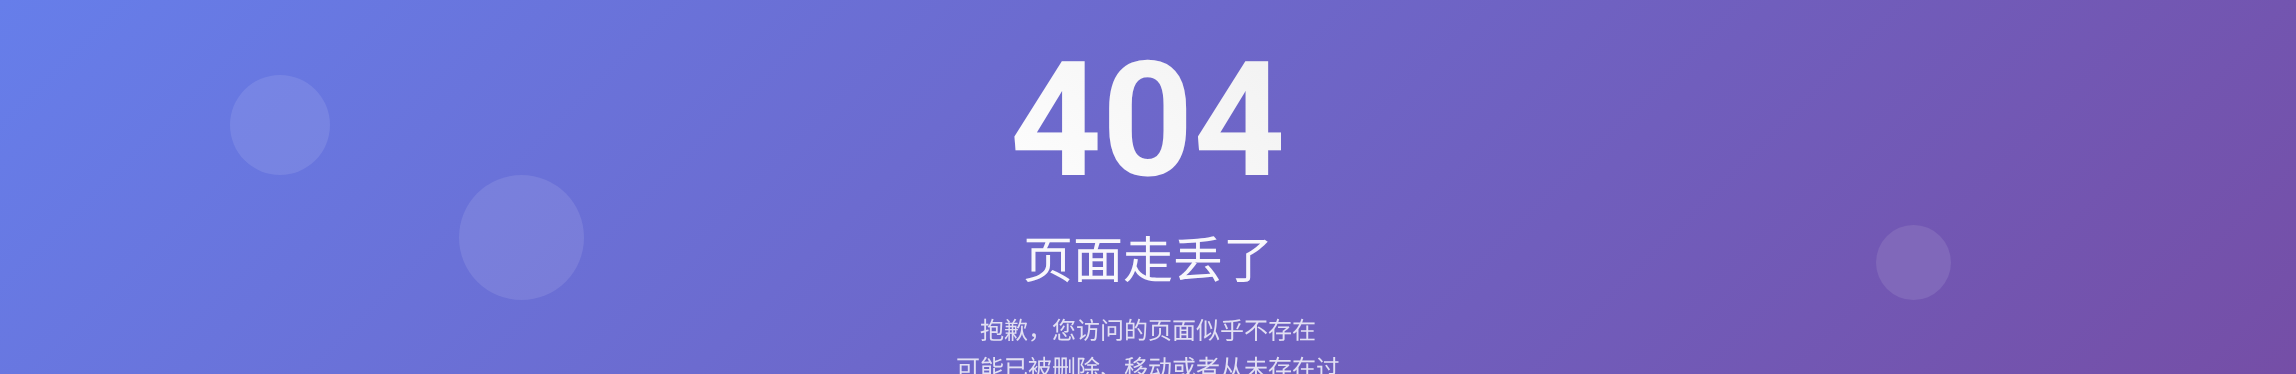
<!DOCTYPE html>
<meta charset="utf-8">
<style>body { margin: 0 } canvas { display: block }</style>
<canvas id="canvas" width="2296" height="374"></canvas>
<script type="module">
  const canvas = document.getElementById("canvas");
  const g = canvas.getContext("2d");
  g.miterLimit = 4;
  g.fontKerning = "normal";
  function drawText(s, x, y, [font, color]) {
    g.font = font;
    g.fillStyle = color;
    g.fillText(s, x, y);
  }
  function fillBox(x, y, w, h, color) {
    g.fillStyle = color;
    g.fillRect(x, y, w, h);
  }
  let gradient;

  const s1 = ["50px Noto Sans CJK SC", "#F8F7FC"];
  const s2 = ["24px Noto Sans CJK SC", "#E2E0F3"];

  fillBox(0, 0, 2296, 374, "#FFFFFF");
  gradient = g.createLinearGradient(438, -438, 1858, 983);
  gradient.addColorStop(0, "#667EEA");
  gradient.addColorStop(1, "#764BA2");
  g.fillStyle = gradient;
  g.fillRect(0, 0, 2296, 374);
  g.font = "bold 160px Roboto";
  gradient = g.createLinearGradient(1012, 256, 1284, -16);
  gradient.addColorStop(0, "#FFFFFF");
  gradient.addColorStop(1, "#F0F0F0");
  g.fillStyle = gradient;
  g.fillText("404", 1010, 175);
  drawText("页面走丢了", 1023, 278, s1);
  drawText("抱歉，您访问的页面似乎不存在", 980, 339, s2);
  drawText("可能已被删除、移动或者从未存在过", 956, 377, s2);
  g.fillStyle = "rgba(255, 255, 255, 0.1)";
  g.beginPath();
  g.arc(280, 125, 50, 0, Math.PI * 2);
  g.fill();
  g.beginPath();
  g.arc(521.5, 237.5, 62.5, 0, Math.PI * 2);
  g.fill();
  g.fillStyle = "#8068BA";
  g.beginPath();
  g.arc(1913.5, 262.5, 37.5, 0, Math.PI * 2);
  g.fill();
</script>
